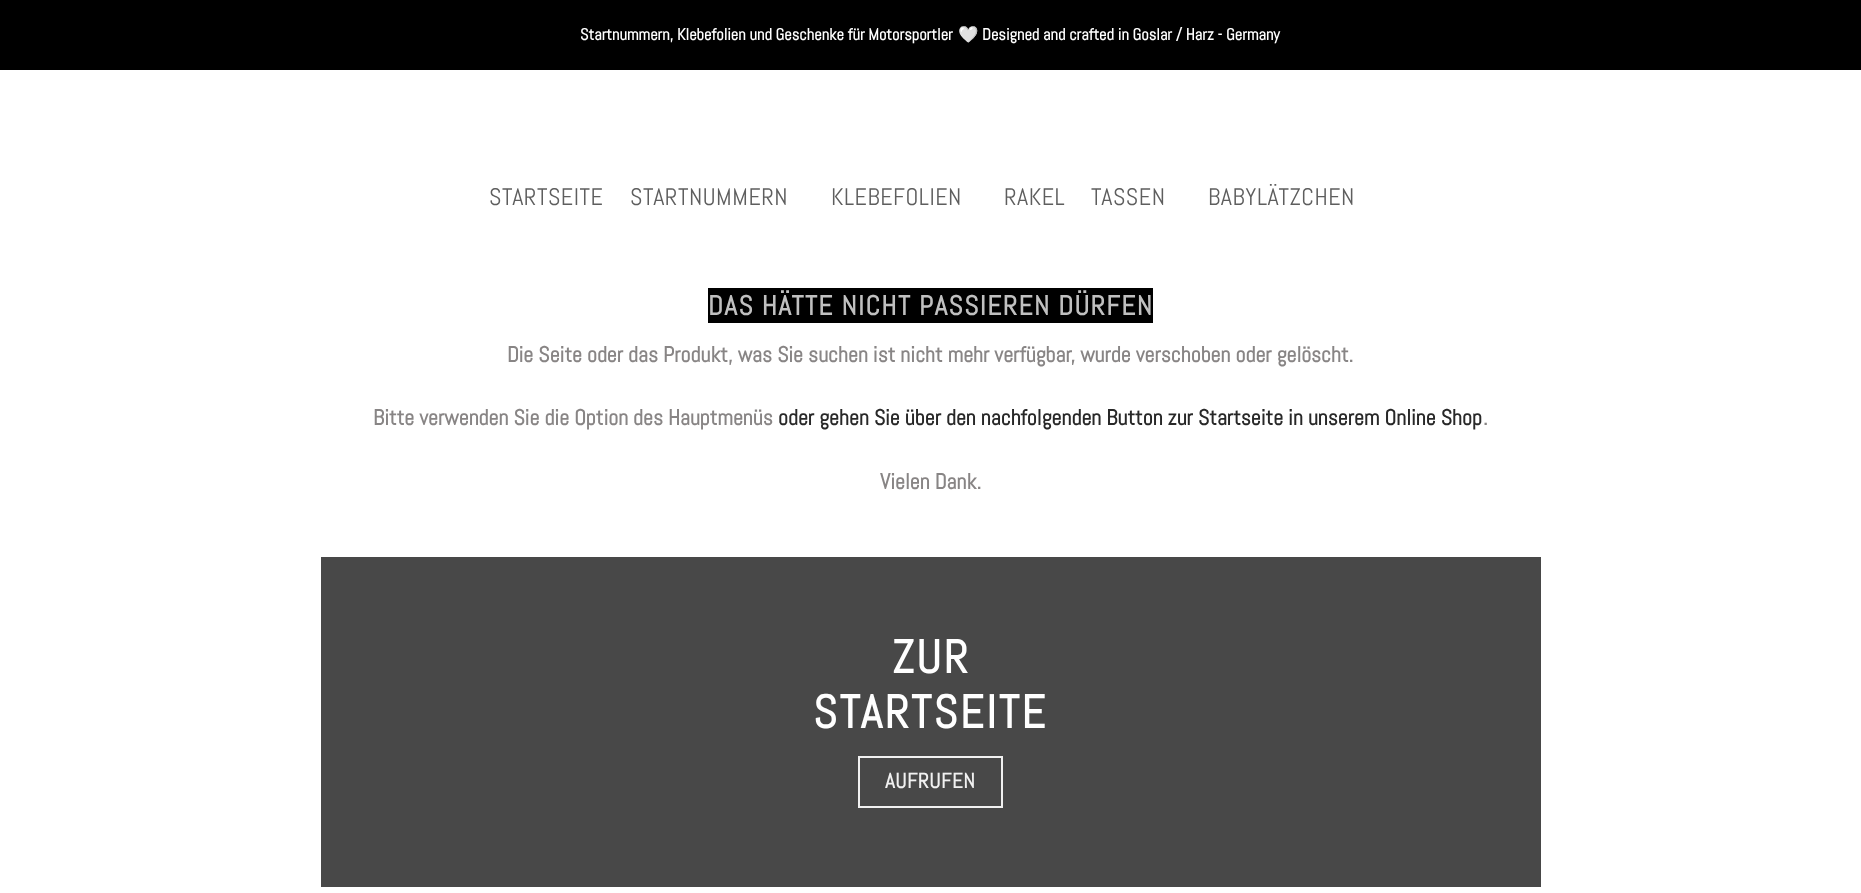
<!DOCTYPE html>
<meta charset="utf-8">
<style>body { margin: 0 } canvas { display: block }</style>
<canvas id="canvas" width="1861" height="893"></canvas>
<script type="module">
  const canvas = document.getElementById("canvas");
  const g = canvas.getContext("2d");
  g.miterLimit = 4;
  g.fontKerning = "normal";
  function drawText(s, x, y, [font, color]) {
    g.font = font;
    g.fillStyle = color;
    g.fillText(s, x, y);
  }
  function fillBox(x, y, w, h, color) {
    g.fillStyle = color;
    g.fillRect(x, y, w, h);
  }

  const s1 = ["bold 16.4px Abel", "#FFFFFF"];
  const s2 = ["bold 16.4px Noto Color Emoji", "#FFFFFF"];
  const s3 = ["24px Abel", "#5E5E5E"];
  const s4 = ["bold 27.4px Abel", "#C0C0C0"];
  const s5 = ["bold 21.9px Abel", "#888585"];
  const s6 = ["bold 21.9px Abel", "#282828"];
  const s7 = ["bold 46.5px Abel", "#FFFFFF"];
  const s8 = ["bold 21px Abel", "#F1F1F1"];

  fillBox(0, 0, 1861, 893, "#FFFFFF");
  fillBox(0, 0, 1861, 70, "#000000");
  drawText("Startnummern, Klebefolien und Geschenke für Motorsportler", 580, 40, s1);
  drawText("🤍", 958, 40, s2);
  drawText("Designed and crafted in Goslar / Harz - Germany", 982, 40, s1);
  g.letterSpacing = "0.5px";
  drawText("STARTSEITE", 489, 205, s3);
  drawText("STARTNUMMERN", 630, 205, s3);
  drawText("KLEBEFOLIEN", 831, 205, s3);
  drawText("RAKEL", 1004, 205, s3);
  drawText("TASSEN", 1091, 205, s3);
  drawText("BABYLÄTZCHEN", 1208, 205, s3);
  fillBox(708, 288, 445, 35, "#000000");
  g.letterSpacing = "1.4px";
  drawText("DAS HÄTTE NICHT PASSIEREN DÜRFEN", 708, 315, s4);
  g.letterSpacing = "0px";
  drawText("Die Seite oder das Produkt, was Sie suchen ist nicht mehr verfügbar, wurde verschoben oder gelöscht.", 507, 362, s5);
  drawText("Bitte verwenden Sie die Option des Hauptmenüs", 373, 425, s5);
  drawText("oder gehen Sie über den nachfolgenden Button zur Startseite in unserem Online Shop", 778, 425, s6);
  drawText(".", 1483, 425, s5);
  drawText("Vielen Dank.", 880, 489, s5);
  fillBox(321, 557, 1220, 330, "#484848");
  g.letterSpacing = "2.25px";
  drawText("ZUR", 892, 673, s7);
  drawText("STARTSEITE", 813, 728, s7);
  g.strokeStyle = "#F1F1F1";
  g.lineWidth = 2;
  g.strokeRect(859, 757, 143, 50);
  g.letterSpacing = "0.5px";
  drawText("AUFRUFEN", 885, 788, s8);
</script>
